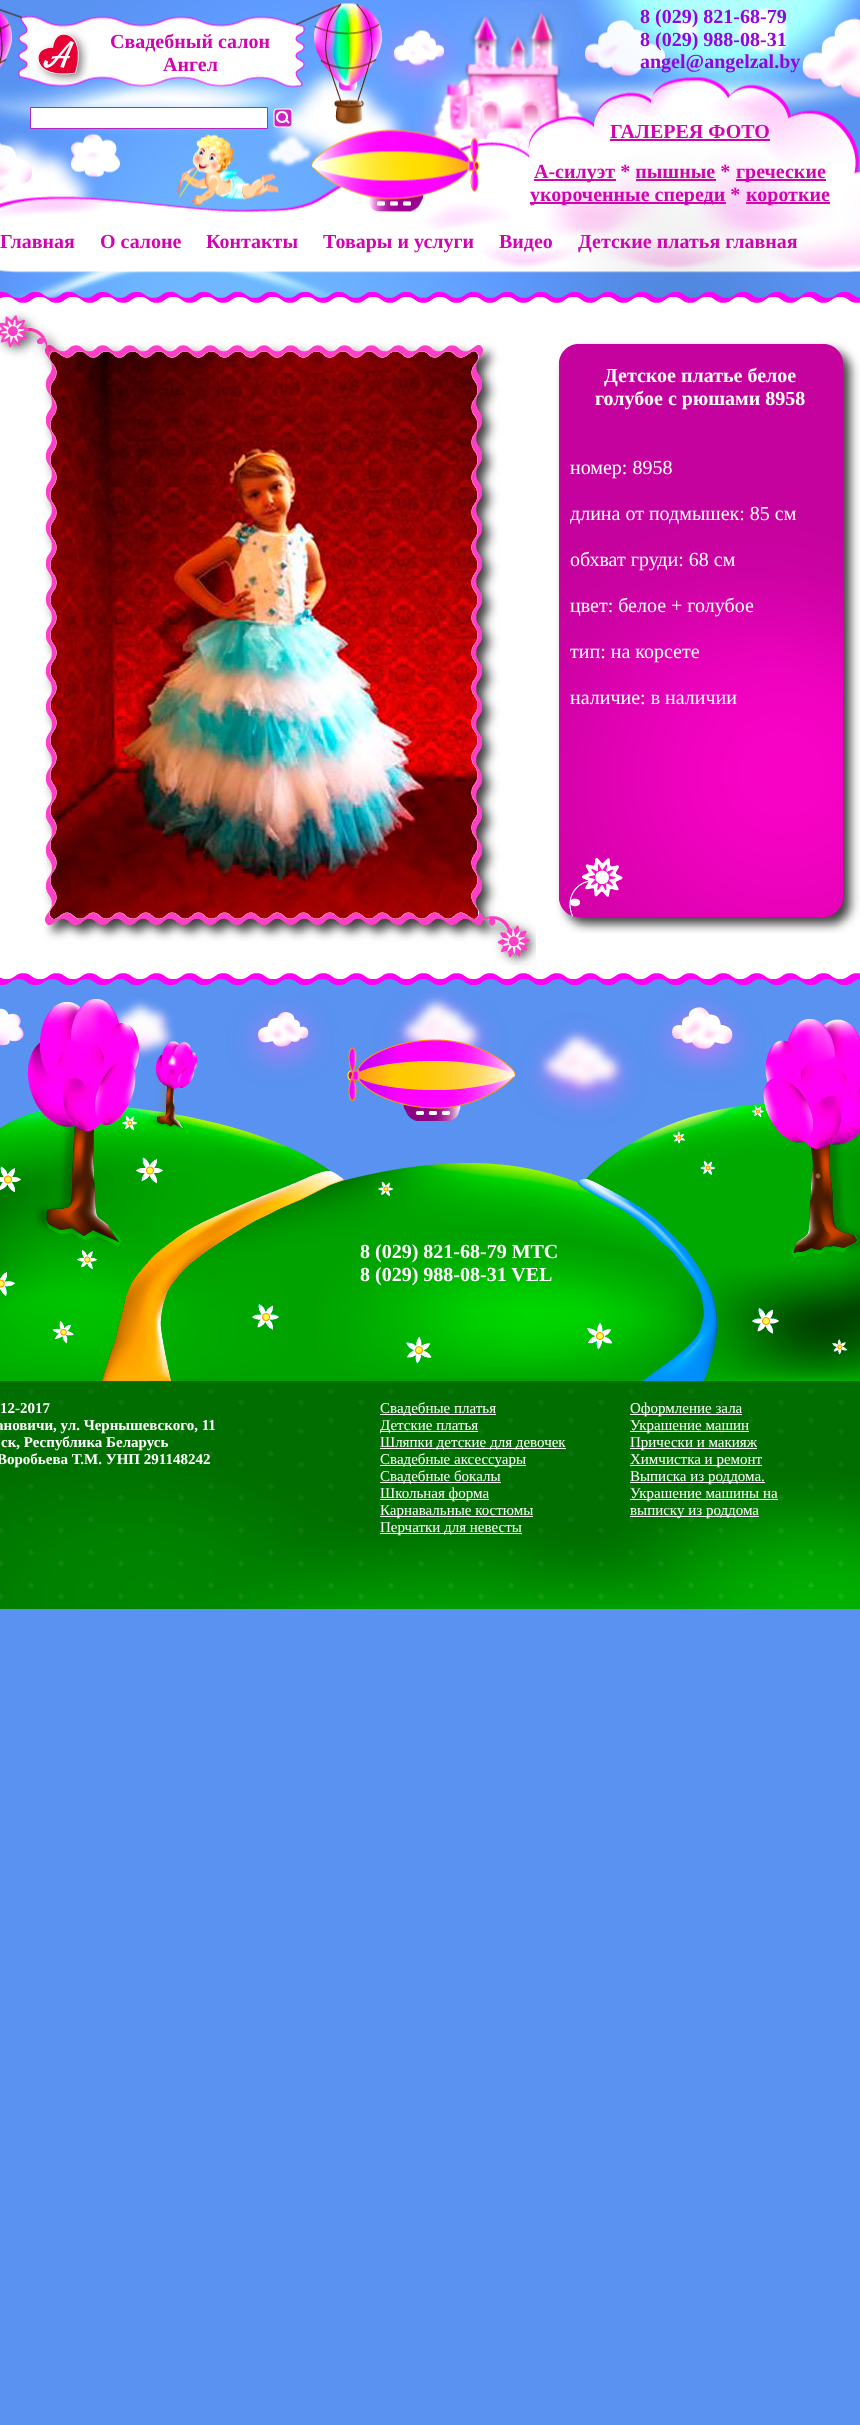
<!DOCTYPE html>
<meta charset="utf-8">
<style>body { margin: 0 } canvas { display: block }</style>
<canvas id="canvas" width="860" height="2425"></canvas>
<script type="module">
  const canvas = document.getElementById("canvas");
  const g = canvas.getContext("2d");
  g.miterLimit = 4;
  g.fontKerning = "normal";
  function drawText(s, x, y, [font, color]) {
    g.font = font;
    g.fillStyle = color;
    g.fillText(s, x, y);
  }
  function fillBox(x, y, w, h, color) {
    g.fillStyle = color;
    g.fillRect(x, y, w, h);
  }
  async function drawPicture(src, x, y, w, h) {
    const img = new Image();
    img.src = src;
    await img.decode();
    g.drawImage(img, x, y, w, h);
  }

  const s1 = ["bold 20px Liberation Serif", "#D204B1"];
  const s2 = ["bold 20px Liberation Serif", "#9205DD"];
  const s3 = ["bold 20px Liberation Serif", "#FFFFFF"];
  const s4 = ["20px Liberation Serif", "#FFFFFF"];
  const s5 = ["bold 15px Liberation Serif", "#FFFFFF"];
  const s6 = ["15px Liberation Serif", "#FFFFFF"];

  fillBox(0, 0, 860, 2425, "#5992F1");
  await drawPicture("pic1.png", 0, 0, 860, 298);
  await drawPicture("pic2.png", 36, 31, 53, 53);
  drawText("Свадебный салон", 110, 48, s1);
  drawText("Ангел", 163, 71, s1);
  g.fillStyle = "#FFFFFF";
  g.beginPath();
  g.rect(30.5, 107.5, 237, 21);
  g.fill();
  g.strokeStyle = "#B526BC";
  g.stroke();
  await drawPicture("pic3.png", 273, 108, 20, 20);
  drawText("8 (029) 821-68-79", 640, 23, s2);
  drawText("8 (029) 988-08-31", 640, 46, s2);
  drawText("angel@angelzal.by", 640, 68, s2);
  drawText("ГАЛЕРЕЯ ФОТО", 610, 138, s1);
  fillBox(610, 139, 160, 2, "#D204B1");
  fillBox(534, 179, 82, 2, "#D204B1");
  drawText("А-силуэт * пышные *", 534, 178, s1);
  fillBox(736, 179, 90, 2, "#D204B1");
  drawText("греческие", 736, 178, s1);
  fillBox(636, 179, 80, 2, "#D204B1");
  fillBox(530, 202, 196, 2, "#D204B1");
  drawText("укороченные спереди *", 530, 201, s1);
  fillBox(746, 202, 84, 2, "#D204B1");
  drawText("короткие", 746, 201, s1);
  drawText("Главная", 0, 248, s1);
  drawText("О салоне", 100, 248, s1);
  drawText("Контакты", 206, 248, s1);
  drawText("Товары и услуги", 323, 248, s1);
  drawText("Видео", 499, 248, s1);
  drawText("Детские платья главная", 578, 248, s1);
  await drawPicture("pic4.png", 0, 292, 860, 693);
  await drawPicture("pic5.png", 0, 311, 536, 655);
  await drawPicture("pic6.png", 556, 341, 304, 592);
  drawText("Детское платье белое", 604, 382, s3);
  drawText("голубое с рюшами 8958", 595, 405, s3);
  drawText("номер: 8958", 570, 474, s4);
  drawText("длина от подмышек: 85 см", 570, 520, s4);
  drawText("обхват груди: 68 см", 570, 566, s4);
  drawText("цвет: белое + голубое", 570, 612, s4);
  drawText("тип: на корсете", 570, 658, s4);
  drawText("наличие: в наличии", 570, 704, s4);
  await drawPicture("pic7.png", 0, 990, 860, 619);
  drawText("8 (029) 821-68-79 МТС", 360, 1258, s3);
  drawText("8 (029) 988-08-31 VEL", 360, 1281, s3);
  drawText("12-2017", 0, 1413, s5);
  drawText("ановичи, ул. Чернышевского, 11", -4, 1430, s5);
  drawText("ск, Республика Беларусь", 1, 1447, s5);
  drawText("Воробьева Т.М. УНП 291148242", -3, 1464, s5);
  fillBox(380, 1414, 116, 1, "#FFFFFF");
  drawText("Свадебные платья", 380, 1413, s6);
  fillBox(380, 1431, 98, 1, "#FFFFFF");
  drawText("Детские платья", 380, 1430, s6);
  fillBox(380, 1448, 186, 1, "#FFFFFF");
  drawText("Шляпки детские для девочек", 380, 1447, s6);
  fillBox(380, 1465, 146, 1, "#FFFFFF");
  drawText("Свадебные аксессуары", 380, 1464, s6);
  fillBox(380, 1482, 121, 1, "#FFFFFF");
  drawText("Свадебные бокалы", 380, 1481, s6);
  fillBox(380, 1499, 109, 1, "#FFFFFF");
  drawText("Школьная форма", 380, 1498, s6);
  fillBox(380, 1516, 153, 1, "#FFFFFF");
  drawText("Карнавальные костюмы", 380, 1515, s6);
  fillBox(380, 1533, 142, 1, "#FFFFFF");
  drawText("Перчатки для невесты", 380, 1532, s6);
  fillBox(630, 1414, 112, 1, "#FFFFFF");
  drawText("Оформление зала", 630, 1413, s6);
  fillBox(630, 1431, 119, 1, "#FFFFFF");
  drawText("Украшение машин", 630, 1430, s6);
  fillBox(630, 1448, 127, 1, "#FFFFFF");
  drawText("Прически и макияж", 630, 1447, s6);
  fillBox(630, 1465, 132, 1, "#FFFFFF");
  drawText("Химчистка и ремонт", 630, 1464, s6);
  fillBox(630, 1482, 135, 1, "#FFFFFF");
  drawText("Выписка из роддома.", 630, 1481, s6);
  fillBox(630, 1499, 148, 1, "#FFFFFF");
  drawText("Украшение машины на", 630, 1498, s6);
  fillBox(630, 1516, 129, 1, "#FFFFFF");
  drawText("выписку из роддома", 630, 1515, s6);
</script>
